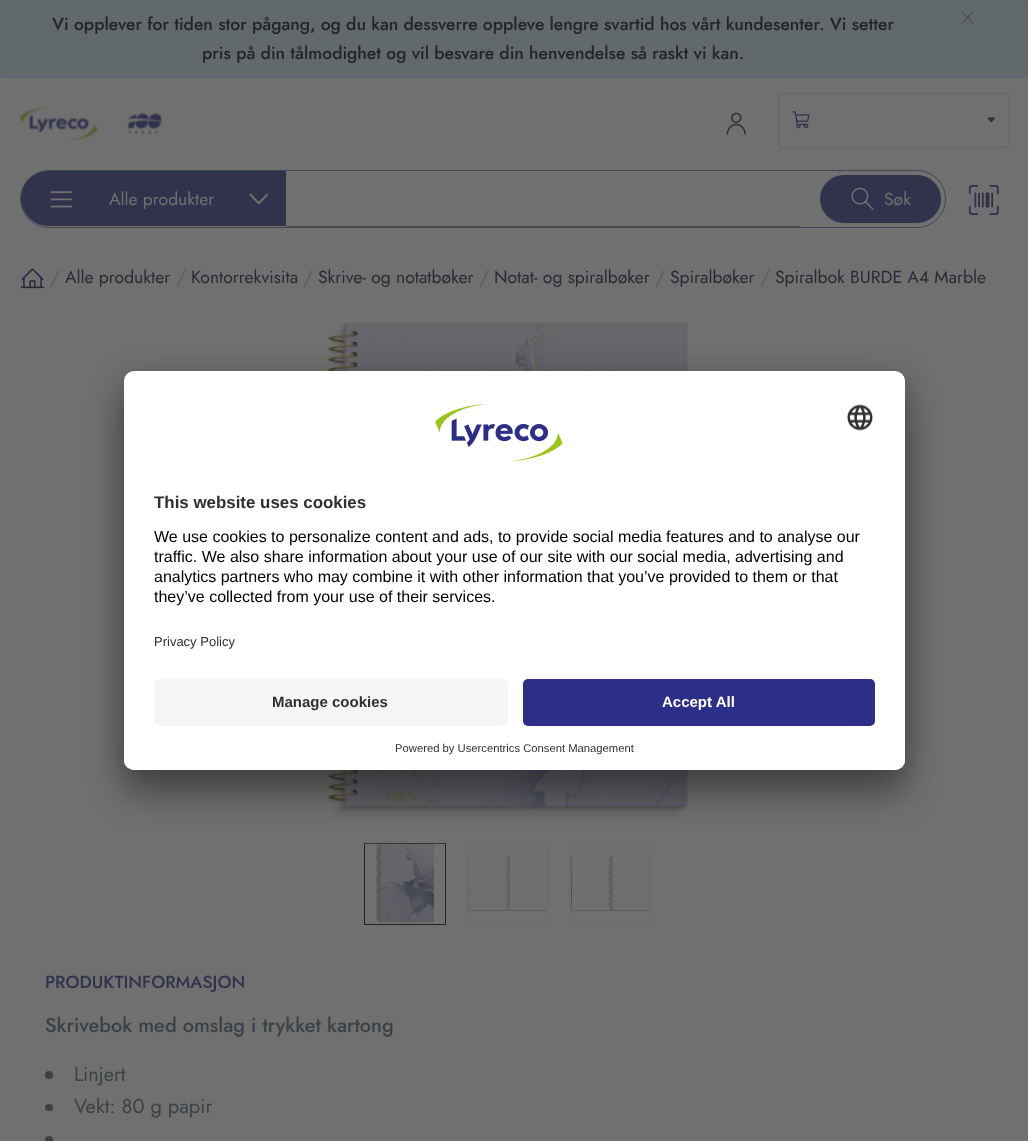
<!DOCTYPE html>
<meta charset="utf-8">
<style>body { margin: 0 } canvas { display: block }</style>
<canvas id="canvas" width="1028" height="1141"></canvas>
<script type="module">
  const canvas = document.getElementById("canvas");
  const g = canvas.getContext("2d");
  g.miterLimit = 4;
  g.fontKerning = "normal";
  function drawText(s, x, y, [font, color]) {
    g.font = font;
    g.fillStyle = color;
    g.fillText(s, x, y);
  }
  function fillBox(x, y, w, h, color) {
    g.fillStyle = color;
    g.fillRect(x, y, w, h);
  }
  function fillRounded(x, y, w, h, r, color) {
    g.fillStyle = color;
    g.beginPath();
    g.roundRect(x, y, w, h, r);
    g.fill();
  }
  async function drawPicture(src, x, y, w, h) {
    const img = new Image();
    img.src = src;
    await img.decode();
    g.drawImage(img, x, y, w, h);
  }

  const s1 = ["500 17.5px Jost", "#242424"];
  const s2 = ["17.5px Jost", "#707070"];
  const s3 = ["20px Jost", "#5F6063"];
  const s4 = ["17.5px Jost", "#292A35"];
  const s5 = ["500 17.5px Jost", "#31324C"];
  const s6 = ["500 20px Jost", "#3C4145"];
  const s7 = ["20px Jost", "#3C4145"];
  const s8 = ["bold 16.9px Liberation Sans", "#303030"];
  const s9 = ["16px Liberation Sans", "#000000"];
  const s10 = ["13px Liberation Sans", "#303030"];
  const s11 = ["bold 15px Liberation Sans", "#303030"];
  const s12 = ["bold 15px Liberation Sans", "#FFFFFF"];
  const s13 = ["11.25px Liberation Sans", "#303030"];

  fillBox(0, 0, 1028, 1141, "#707070");
  g.fillStyle = "#62696C";
  g.beginPath();
  g.rect(0.5, 0.5, 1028, 77);
  g.fill();
  g.strokeStyle = "#5D686A";
  g.stroke();
  drawText("Vi opplever for tiden stor pågang, og du kan dessverre oppleve lengre svartid hos vårt kundesenter. Vi setter", 52, 30, s1);
  drawText("pris på din tålmodighet og vil besvare din henvendelse så raskt vi kan.", 202, 59, s1);
  await drawPicture("pic1.png", 961, 11, 13, 13);
  await drawPicture("pic2.png", 19, 106, 143, 35);
  await drawPicture("pic3.png", 726, 112, 20, 23);
  g.beginPath();
  g.roundRect(778.5, 93.5, 231, 54, 4.5);
  g.strokeStyle = "#636567";
  g.stroke();
  await drawPicture("pic4.png", 792, 111, 18, 18);
  await drawPicture("pic5.png", 987, 117, 8, 6);
  g.beginPath();
  g.roundRect(20.5, 170.5, 925, 57, 28.5);
  g.strokeStyle = "#43474F";
  g.stroke();
  g.fillStyle = "#31324C";
  g.beginPath();
  g.roundRect(21, 171, 275, 55, [27.5, 0, 0, 27.5]);
  g.fill();
  await drawPicture("pic6.png", 50, 191, 22, 17);
  drawText("Alle produkter", 109, 205, s2);
  await drawPicture("pic7.png", 249, 193, 20, 11);
  fillBox(286, 171, 10, 55, "#707070");
  fillBox(286, 226, 514, 1, "#43474F");
  fillRounded(820, 175, 121, 48, 24, "#31324C");
  await drawPicture("pic8.png", 851, 187, 23, 23);
  drawText("Søk", 884, 205, s2);
  await drawPicture("pic9.png", 969, 185, 30, 30);
  await drawPicture("pic10.png", 20, 268, 25, 21);
  drawText("/", 50, 284, s3);
  drawText("Alle produkter", 65, 283, s4);
  drawText("/", 176, 284, s3);
  drawText("Kontorrekvisita", 191, 283, s4);
  drawText("/", 303, 284, s3);
  drawText("Skrive- og notatbøker", 318, 283, s4);
  drawText("/", 479, 284, s3);
  drawText("Notat- og spiralbøker", 494, 283, s4);
  drawText("/", 655, 284, s3);
  drawText("Spiralbøker", 670, 283, s4);
  drawText("/", 760, 284, s3);
  drawText("Spiralbok BURDE A4 Marble", 775, 283, s4);
  await drawPicture("pic11.png", 324, 323, 366, 496);
  g.strokeStyle = "#242424";
  g.strokeRect(364.5, 843.5, 81, 81);
  await drawPicture("pic12.png", 365, 843, 80, 80);
  g.strokeStyle = "#6B6B6B";
  g.strokeRect(466.5, 843.5, 82, 81);
  await drawPicture("pic13.png", 468, 843, 80, 69);
  g.strokeRect(569.5, 843.5, 81, 81);
  await drawPicture("pic14.png", 570, 843, 80, 69);
  drawText("PRODUKTINFORMASJON", 45, 988, s5);
  drawText("Skrivebok med omslag i trykket kartong", 45, 1032, s6);
  g.beginPath();
  g.arc(49, 1075, 4, 0, Math.PI * 2);
  g.fill();
  drawText("Linjert", 74, 1081, s7);
  fillRounded(45, 1104, 8, 7, 3.5, "#3C4145");
  drawText("Vekt: 80 g papir", 74, 1113, s7);
  g.beginPath();
  g.arc(49, 1140, 4, 0, Math.PI * 2);
  g.fill();
  g.fillStyle = "rgba(0, 0, 0, 0.3)";
  g.filter = "blur(17.5px)";
  g.beginPath();
  g.roundRect(124, 396, 781, 399, 10);
  g.fill();
  g.filter = "none";
  g.fillStyle = "rgba(0, 0, 0, 0.22)";
  g.filter = "blur(16px)";
  g.beginPath();
  g.roundRect(124, 378, 781, 398, 10);
  g.fill();
  g.filter = "none";
  fillRounded(124, 371, 781, 399, 10, "#FFFFFF");
  g.save();
  g.beginPath();
  g.roundRect(124, 371, 781, 399, 10);
  g.clip();
  g.beginPath();
  g.roundRect(124, 371, 781, 298, [10, 10, 0, 0]);
  g.clip();
  fillBox(124, 373, 781, 296, "#FFFFFF");
  g.restore();
  await drawPicture("pic15.png", 435, 404, 128, 57);
  await drawPicture("pic16.png", 847, 404, 26, 27);
  drawText("This website uses cookies", 154, 508, s8);
  drawText("We use cookies to personalize content and ads, to provide social media features and to analyse our", 154, 542, s9);
  drawText("traffic. We also share information about your use of our site with our social media, advertising and", 154, 562, s9);
  drawText("analytics partners who may combine it with other information that you’ve provided to them or that", 154, 582, s9);
  drawText("they’ve collected from your use of their services.", 154, 602, s9);
  drawText("Privacy Policy", 154, 646, s10);
  g.fillStyle = "#FFFFFF";
  g.beginPath();
  g.roundRect(124, 669, 781, 101, [0, 0, 10, 10]);
  g.fill();
  fillRounded(154, 679, 354, 47, 5, "#F5F5F5");
  drawText("Manage cookies", 272, 707, s11);
  fillRounded(523, 679, 352, 47, 5, "#2D2E87");
  drawText("Accept All", 662, 707, s12);
  drawText("Powered by Usercentrics Consent Management", 395, 752, s13);
</script>
